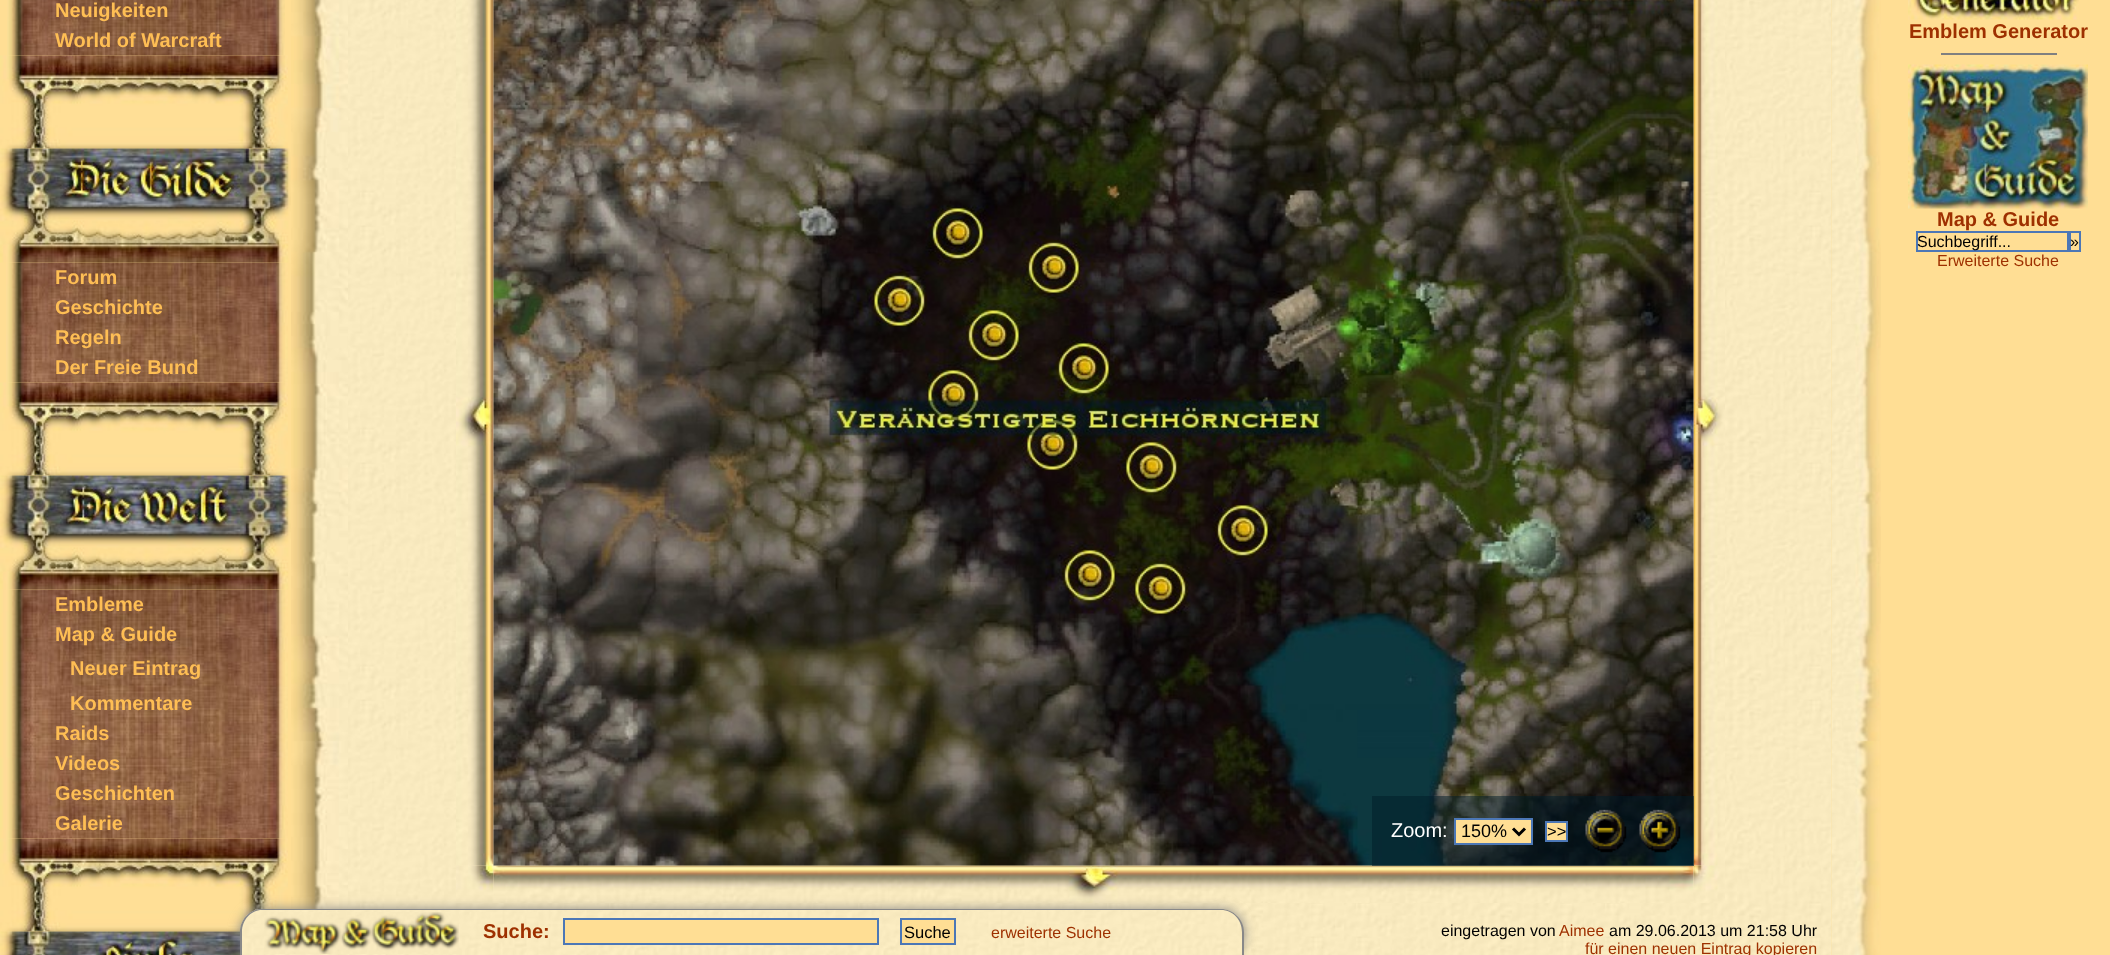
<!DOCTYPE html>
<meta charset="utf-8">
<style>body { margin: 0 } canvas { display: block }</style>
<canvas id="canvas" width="2110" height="955"></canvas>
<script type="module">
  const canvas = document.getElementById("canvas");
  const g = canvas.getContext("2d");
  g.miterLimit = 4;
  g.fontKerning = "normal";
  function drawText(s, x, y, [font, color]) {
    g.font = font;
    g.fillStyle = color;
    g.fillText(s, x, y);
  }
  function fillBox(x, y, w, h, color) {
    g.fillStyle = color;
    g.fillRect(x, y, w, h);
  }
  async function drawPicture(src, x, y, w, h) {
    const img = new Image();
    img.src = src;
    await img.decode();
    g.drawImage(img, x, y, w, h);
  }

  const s1 = ["bold 20px Liberation Sans", "#FEBE54"];
  const s2 = ["bold 20px Liberation Sans", "#9E3000"];
  const s3 = ["16px Liberation Sans", "#000000"];
  const s4 = ["16px Liberation Sans", "#9E3000"];
  const s5 = ["20px Liberation Sans", "#FFFFFF"];
  const s6 = ["18px Liberation Sans", "#000000"];
  const s7 = ["16.5px Liberation Sans", "#000000"];

  fillBox(0, 0, 2110, 955, "#FFDE94");
  await drawPicture("pic1.png", 7, 0, 278, 56);
  drawText("Neuigkeiten", 55, 17, s1);
  drawText("World of Warcraft", 55, 47, s1);
  await drawPicture("pic2.png", 0, 55, 288, 94);
  await drawPicture("pic4.png", 6, 262, 282, 121);
  await drawPicture("pic3.png", 0, 148, 291, 115);
  drawText("Forum", 55, 284, s1);
  drawText("Geschichte", 55, 314, s1);
  drawText("Regeln", 55, 344, s1);
  drawText("Der Freie Bund", 55, 374, s1);
  await drawPicture("pic5.png", 0, 382, 288, 94);
  await drawPicture("pic7.png", 0, 589, 288, 250);
  await drawPicture("pic6.png", 0, 475, 291, 115);
  drawText("Embleme", 55, 611, s1);
  drawText("Map & Guide", 55, 641, s1);
  drawText("Neuer Eintrag", 70, 675, s1);
  drawText("Kommentare", 70, 710, s1);
  drawText("Raids", 55, 740, s1);
  drawText("Videos", 55, 770, s1);
  drawText("Geschichten", 55, 800, s1);
  drawText("Galerie", 55, 830, s1);
  await drawPicture("pic8.png", 0, 838, 288, 94);
  await drawPicture("pic9.png", 0, 931, 241, 24);
  await drawPicture("pic10.png", 1908, 0, 171, 20);
  drawText("Emblem Generator", 1909, 38, s2);
  fillBox(1941, 53, 116, 2, "#808080");
  await drawPicture("pic11.png", 1908, 64, 180, 145);
  drawText("Map & Guide", 1937, 226, s2);
  g.strokeStyle = "#4C77B6";
  g.lineWidth = 2;
  g.strokeRect(1917, 232, 151, 19);
  drawText("Suchbegriff...", 1917, 247, s3);
  g.strokeRect(2070, 232, 10, 19);
  drawText("»", 2070, 247, s3);
  drawText("Erweiterte Suche", 1937, 266, s4);
  await drawPicture("pic12.png", 291, 0, 57, 909);
  await drawPicture("pic13.png", 348, 0, 1484, 955);
  await drawPicture("pic14.png", 456, 0, 38, 866);
  await drawPicture("pic18.png", 1693, 0, 32, 866);
  await drawPicture("pic19.png", 456, 865, 38, 38);
  await drawPicture("pic20.png", 493, 865, 1201, 38);
  await drawPicture("pic21.png", 1693, 865, 32, 38);
  await drawPicture("pic15.png", 493, 0, 1201, 866);
  fillBox(1372, 796, 322, 70, "rgba(0, 28, 40, 0.5)");
  drawText("Zoom:", 1391, 837, s5);
  g.fillStyle = "#FFDE94";
  g.beginPath();
  g.rect(1455, 819, 77, 25);
  g.fill();
  g.stroke();
  g.beginPath();
  g.moveTo(1513, 828.5);
  g.lineTo(1519, 834.5);
  g.lineTo(1525, 828.5);
  g.strokeStyle = "#000000";
  g.lineWidth = 3;
  g.stroke();
  drawText("150%", 1461, 837, s6);
  g.fillStyle = "#FFDE94";
  g.beginPath();
  g.rect(1546, 822, 21, 19);
  g.fill();
  g.strokeStyle = "#4C77B6";
  g.lineWidth = 2;
  g.stroke();
  drawText(">>", 1547, 837, s7);
  await drawPicture("pic16.png", 1585, 809, 42, 44);
  await drawPicture("pic17.png", 1639, 809, 42, 44);
  drawText("eingetragen von", 1441, 936, s3);
  drawText("Aimee", 1559, 936, s4);
  drawText("am 29.06.2013 um 21:58 Uhr", 1609, 936, s3);
  drawText("für einen neuen Eintrag kopieren", 1585, 954, s4);
  await drawPicture("pic22.png", 1831, 0, 50, 955);
  g.fillStyle = "#888888";
  g.filter = "blur(6px)";
  g.beginPath();
  g.roundRect(240, 909, 1004, 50, 23);
  g.fill();
  g.filter = "none";
  await drawPicture("pic23.png", 240, 909, 1004, 46);
  g.beginPath();
  g.moveTo(262, 909);
  g.lineTo(1221, 909);
  g.bezierCurveTo(1233, 909, 1244, 919, 1244, 932);
  g.lineTo(1244, 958);
  g.lineTo(240, 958);
  g.lineTo(240, 932);
  g.bezierCurveTo(240, 919, 250, 909, 262, 909);
  g.closePath();
  g.moveTo(262, 910);
  g.lineTo(1221, 910);
  g.bezierCurveTo(1233, 910, 1242, 920, 1242, 932);
  g.lineTo(1242, 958);
  g.lineTo(242, 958);
  g.lineTo(242, 932);
  g.bezierCurveTo(242, 920, 251, 910, 262, 910);
  g.closePath();
  g.fill("evenodd");
  await drawPicture("pic24.png", 264, 912, 195, 42);
  drawText("Suche:", 483, 938, s2);
  g.fillStyle = "#FFDE94";
  g.beginPath();
  g.rect(564, 919, 314, 25);
  g.fill();
  g.stroke();
  g.beginPath();
  g.rect(901, 919, 54, 25);
  g.fill();
  g.stroke();
  drawText("Suche", 904, 938, s7);
  drawText("erweiterte Suche", 991, 938, s4);
</script>
